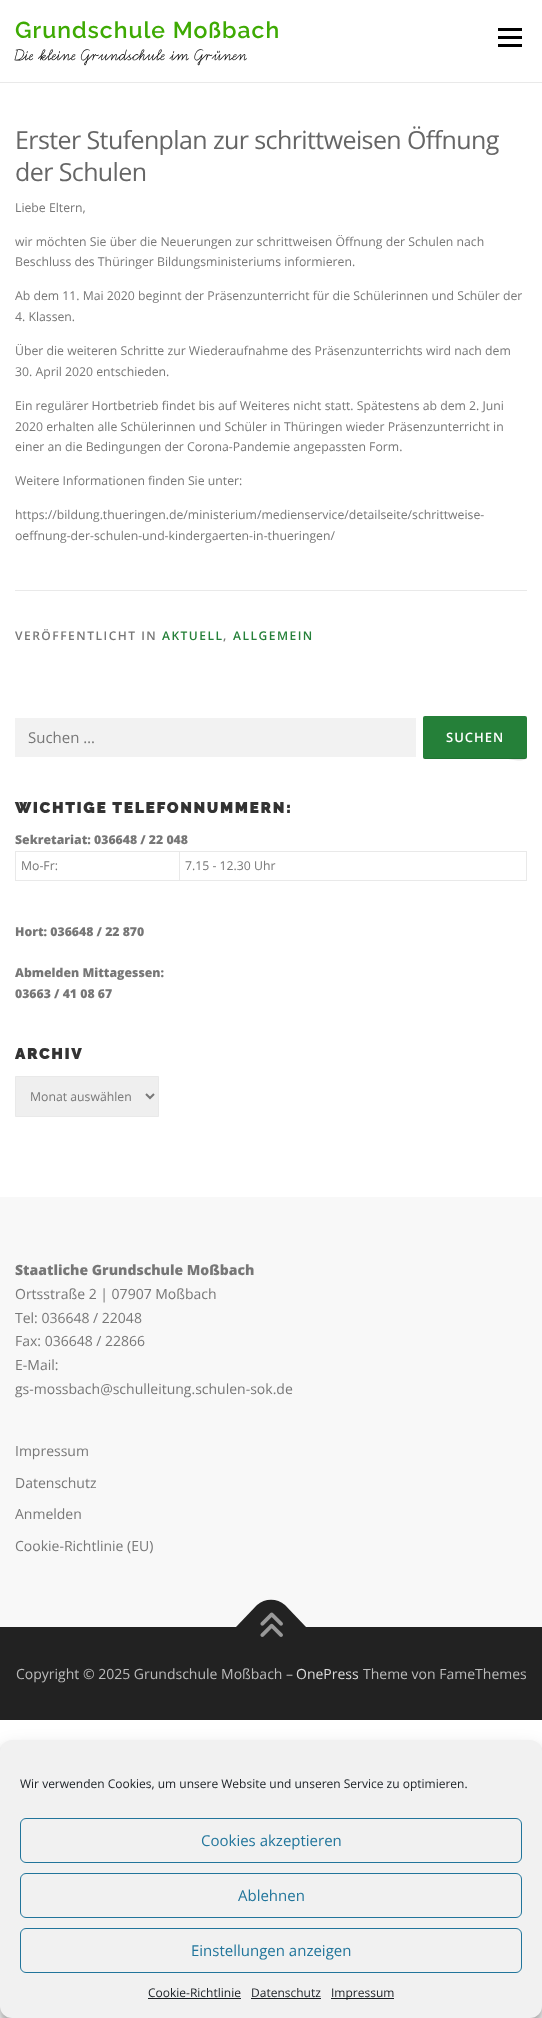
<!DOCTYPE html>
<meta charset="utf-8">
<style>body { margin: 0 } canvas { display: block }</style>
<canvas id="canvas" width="542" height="2018"></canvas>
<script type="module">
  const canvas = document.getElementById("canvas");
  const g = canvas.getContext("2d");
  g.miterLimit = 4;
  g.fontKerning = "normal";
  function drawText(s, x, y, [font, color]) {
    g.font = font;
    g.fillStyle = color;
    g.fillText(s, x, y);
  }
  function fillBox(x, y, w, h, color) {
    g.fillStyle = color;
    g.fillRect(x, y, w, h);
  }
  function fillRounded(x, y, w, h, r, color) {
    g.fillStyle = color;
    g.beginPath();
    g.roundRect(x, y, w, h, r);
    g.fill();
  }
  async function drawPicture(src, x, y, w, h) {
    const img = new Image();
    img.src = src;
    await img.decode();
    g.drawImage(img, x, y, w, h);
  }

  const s1 = ["100 23px Raleway", "#3EAA03"];
  const s2 = ["19.6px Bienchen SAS", "#000000"];
  const s3 = ["25px Open Sans", "#666666"];
  const s4 = ["12.25px Open Sans", "#777777"];
  const s5 = ["600 12px Open Sans", "#777777"];
  const s6 = ["600 12px Open Sans", "#258039"];
  const s7 = ["15px Open Sans", "#777777"];
  const s8 = ["600 13px Open Sans", "#FFFFFF"];
  const s9 = ["bold 15px Raleway", "#333333"];
  const s10 = ["800 12.25px Open Sans", "#777777"];
  const s11 = ["800 14px Open Sans", "#777777"];
  const s12 = ["14px Open Sans", "#777777"];
  const s13 = ["14px Open Sans", "#BBBBBB"];
  const s14 = ["14px Open Sans", "#DDDDDD"];
  const s15 = ["12px Open Sans", "#191E23"];
  const s16 = ["15px Open Sans", "#21759B"];

  fillBox(0, 0, 542, 2018, "#FFFFFF");
  g.letterSpacing = "1px";
  drawText("Grundschule Moßbach", 15, 38, s1);
  g.letterSpacing = "0px";
  drawText("Die kleine Grundschule im Grünen", 15, 60, s2);
  fillBox(498, 36, 24, 3, "#000000");
  fillBox(498, 28, 24, 3, "#000000");
  fillBox(498, 44, 24, 3, "#000000");
  fillBox(0, 82, 542, 1, "#E9E9E9");
  g.letterSpacing = "-0.6px";
  drawText("Erster Stufenplan zur schrittweisen Öffnung", 15, 149, s3);
  drawText("der Schulen", 15, 181, s3);
  g.letterSpacing = "0px";
  drawText("Liebe Eltern,", 15, 212, s4);
  drawText("wir möchten Sie über die Neuerungen zur schrittweisen Öffnung der Schulen nach", 15, 246, s4);
  drawText("Beschluss des Thüringer Bildungsministeriums informieren.", 15, 266, s4);
  drawText("Ab dem 11. Mai 2020 beginnt der Präsenzunterricht für die Schülerinnen und Schüler der", 15, 300, s4);
  drawText("4. Klassen.", 15, 321, s4);
  drawText("Über die weiteren Schritte zur Wiederaufnahme des Präsenzunterrichts wird nach dem", 15, 355, s4);
  drawText("30. April 2020 entschieden.", 15, 376, s4);
  drawText("Ein regulärer Hortbetrieb findet bis auf Weiteres nicht statt. Spätestens ab dem 2. Juni", 15, 410, s4);
  drawText("2020 erhalten alle Schülerinnen und Schüler in Thüringen wieder Präsenzunterricht in", 15, 431, s4);
  drawText("einer an die Bedingungen der Corona-Pandemie angepassten Form.", 15, 451, s4);
  drawText("Weitere Informationen finden Sie unter:", 15, 485, s4);
  drawText("https://bildung.thueringen.de/ministerium/medienservice/detailseite/schrittweise-", 15, 519, s4);
  drawText("oeffnung-der-schulen-und-kindergaerten-in-thueringen/", 15, 540, s4);
  fillBox(15, 590, 512, 1, "#E9E9E9");
  g.letterSpacing = "1.5px";
  drawText("VERÖFFENTLICHT IN", 15, 640, s5);
  drawText("AKTUELL", 162, 640, s6);
  drawText(",", 223, 640, s5);
  drawText("ALLGEMEIN", 233, 640, s6);
  fillBox(15, 718, 401, 39, "#F2F2F2");
  g.letterSpacing = "0px";
  drawText("Suchen …", 28, 743, s7);
  fillRounded(423, 716, 104, 43, 2, "#258039");
  g.fillStyle = "rgba(0, 0, 0, 0.1)";
  g.beginPath();
  g.moveTo(423, 756);
  g.bezierCurveTo(423, 757, 423, 759, 425, 759);
  g.lineTo(508, 759);
  g.bezierCurveTo(509, 759, 527, 764, 527, 756);
  g.bezierCurveTo(527, 757, 526, 758, 525, 758);
  g.lineTo(425, 758);
  g.bezierCurveTo(424, 758, 423, 757, 423, 756);
  g.closePath();
  g.fill();
  g.letterSpacing = "1px";
  drawText("SUCHEN", 446, 742, s8);
  g.letterSpacing = "2px";
  drawText("WICHTIGE TELEFONNUMMERN:", 15, 813, s9);
  g.letterSpacing = "0px";
  drawText("Sekretariat: 036648 / 22 048", 15, 844, s10);
  fillBox(179, 851, 348, 1, "#E9E9E9");
  fillBox(526, 851, 1, 30, "#E9E9E9");
  fillBox(179, 880, 348, 1, "#E9E9E9");
  fillBox(179, 851, 1, 30, "#E9E9E9");
  fillBox(15, 851, 165, 1, "#E9E9E9");
  fillBox(15, 880, 165, 1, "#E9E9E9");
  fillBox(15, 851, 1, 30, "#E9E9E9");
  drawText("Mo-Fr:", 21, 870, s4);
  drawText("7.15 - 12.30 Uhr", 185, 870, s4);
  drawText("Hort: 036648 / 22 870", 15, 936, s10);
  drawText("Abmelden Mittagessen:", 15, 977, s10);
  drawText("03663 / 41 08 67", 15, 998, s10);
  g.letterSpacing = "2px";
  drawText("ARCHIV", 15, 1059, s9);
  g.fillStyle = "#EFEFEF";
  g.beginPath();
  g.rect(15.5, 1076.5, 143, 40);
  g.fill();
  g.strokeStyle = "#E9E9E9";
  g.stroke();
  g.beginPath();
  g.moveTo(146, 1094);
  g.lineTo(150, 1098);
  g.lineTo(154, 1094);
  g.strokeStyle = "#777777";
  g.lineWidth = 2;
  g.stroke();
  g.letterSpacing = "0px";
  drawText("Monat auswählen", 30, 1101, s4);
  fillBox(0, 1197, 542, 430, "#F8F8F8");
  drawText("Staatliche Grundschule Moßbach", 15, 1275, s11);
  drawText("Ortsstraße 2 | 07907 Moßbach", 15, 1299, s12);
  drawText("Tel: 036648 / 22048", 15, 1323, s12);
  drawText("Fax: 036648 / 22866", 15, 1346, s12);
  drawText("E-Mail:", 15, 1370, s12);
  drawText("gs-mossbach@schulleitung.schulen-sok.de", 15, 1394, s12);
  drawText("Impressum", 15, 1456, s12);
  drawText("Datenschutz", 15, 1488, s12);
  drawText("Anmelden", 15, 1519, s12);
  drawText("Cookie-Richtlinie (EU)", 15, 1551, s12);
  fillBox(0, 1627, 542, 93, "#222222");
  g.beginPath();
  g.moveTo(236, 1627);
  g.lineTo(257, 1605);
  g.bezierCurveTo(265, 1598, 277, 1598, 285, 1605);
  g.lineTo(306, 1627);
  g.lineTo(271, 1662);
  g.closePath();
  g.fill();
  await drawPicture("pic1.png", 260, 1612, 23, 25);
  drawText("Copyright © 2025 Grundschule Moßbach –", 16, 1679, s13);
  drawText("OnePress", 296, 1679, s14);
  drawText("Theme von FameThemes", 363, 1679, s13);
  g.fillStyle = "rgba(0, 0, 0, 0.23)";
  g.filter = "blur(3px)";
  g.beginPath();
  g.roundRect(0, 1746, 542, 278, 12);
  g.fill();
  g.filter = "none";
  g.fillStyle = "rgba(0, 0, 0, 0.19)";
  g.filter = "blur(10px)";
  g.beginPath();
  g.roundRect(0, 1750, 542, 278, 12);
  g.fill();
  g.filter = "none";
  fillRounded(0, 1740, 542, 278, 12, "#F1F1F1");
  drawText("Wir verwenden Cookies, um unsere Website und unseren Service zu optimieren.", 20, 1788, s15);
  g.beginPath();
  g.roundRect(20.5, 1818.5, 501, 44, 5.5);
  g.strokeStyle = "#21759B";
  g.lineWidth = 1;
  g.stroke();
  drawText("Cookies akzeptieren", 201, 1846, s16);
  g.beginPath();
  g.roundRect(20.5, 1873.5, 501, 44, 5.5);
  g.stroke();
  drawText("Ablehnen", 238, 1901, s16);
  g.beginPath();
  g.roundRect(20.5, 1928.5, 501, 44, 5.5);
  g.stroke();
  drawText("Einstellungen anzeigen", 191, 1956, s16);
  drawText("Cookie-Richtlinie", 148, 1997, s15);
  fillBox(148, 1998, 93, 1, "#191E23");
  drawText("Datenschutz", 251, 1997, s15);
  fillBox(251, 1998, 70, 1, "#191E23");
  fillBox(331, 1998, 63, 1, "#191E23");
  drawText("Impressum", 331, 1997, s15);
</script>
